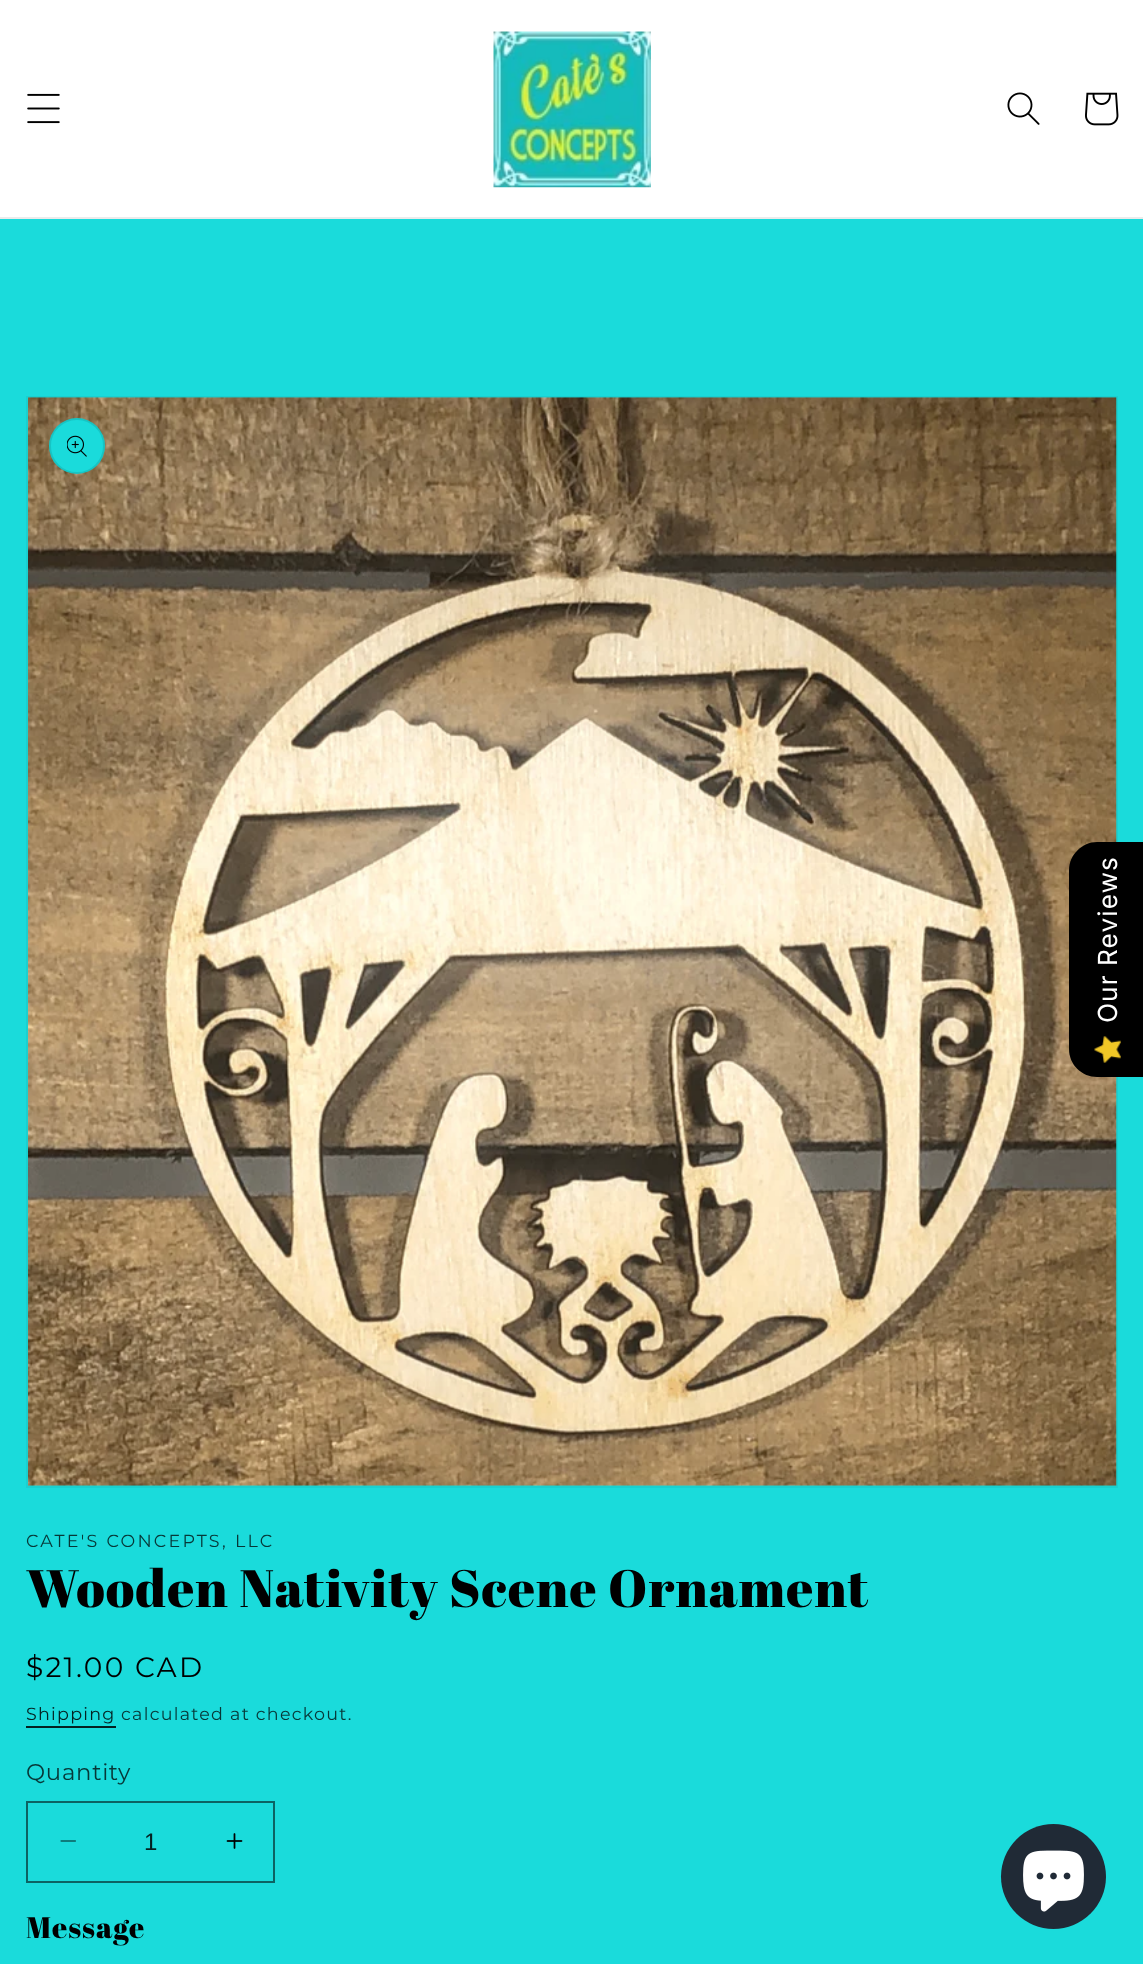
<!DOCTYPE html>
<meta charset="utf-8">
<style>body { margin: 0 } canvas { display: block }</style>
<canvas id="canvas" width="1143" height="1964"></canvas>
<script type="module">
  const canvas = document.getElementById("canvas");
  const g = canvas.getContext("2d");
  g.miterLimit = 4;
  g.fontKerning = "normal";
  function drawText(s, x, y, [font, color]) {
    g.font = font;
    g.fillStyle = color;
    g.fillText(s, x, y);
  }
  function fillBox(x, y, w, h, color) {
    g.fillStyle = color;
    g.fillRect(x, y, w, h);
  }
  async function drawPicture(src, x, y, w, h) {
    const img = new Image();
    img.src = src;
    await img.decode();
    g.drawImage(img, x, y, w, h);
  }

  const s1 = ["17.5px Montserrat", "#073737"];
  const s2 = ["52.5px Abril Fatface", "#000000"];
  const s3 = ["28px Montserrat", "#000000"];
  const s4 = ["17.5px Montserrat", "#042121"];
  const s5 = ["22.75px Montserrat", "#073737"];
  const s6 = ["24px Liberation Sans", "#042121"];
  const s7 = ["29.75px Abril Fatface", "#000000"];

  fillBox(0, 0, 1143, 1964, "#1ADBDB");
  fillBox(0, 0, 1143, 217, "#FFFFFF");
  fillBox(0, 217, 1143, 2, "#EBEBEB");
  await drawPicture("pic1.png", 27, 93, 33, 31);
  await drawPicture("pic2.png", 493, 31, 158, 157);
  await drawPicture("pic3.png", 1007, 92, 33, 33);
  await drawPicture("pic4.png", 1085, 92, 34, 34);
  g.strokeStyle = "#19D0D0";
  g.lineWidth = 2;
  g.strokeRect(27, 397, 1090, 1090);
  await drawPicture("pic6.png", 28, 397, 1089, 1089);
  g.fillStyle = "#000000";
  g.beginPath();
  g.moveTo(1069, 1049);
  g.lineTo(1069, 870);
  g.bezierCurveTo(1069, 855, 1082, 842, 1097, 842);
  g.lineTo(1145, 842);
  g.lineTo(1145, 1077);
  g.lineTo(1097, 1077);
  g.bezierCurveTo(1082, 1077, 1069, 1065, 1069, 1049);
  g.closePath();
  g.fill();
  g.letterSpacing = "1.05px";
  g.font = "26.25px Inter";
  g.fillStyle = "#FFFFFF";
  g.save();
  g.translate(1117, 1023);
  g.rotate(-90 * Math.PI / 180);
  g.fillText("Our Reviews", 0, 0);
  g.restore();
  await drawPicture("pic5.png", 1094, 1036, 27, 27);
  g.fillStyle = "#1ADBDB";
  g.beginPath();
  g.arc(77, 446, 28, 0, Math.PI * 2);
  g.fill();
  g.beginPath();
  g.arc(77, 446, 27, 0, Math.PI * 2);
  g.strokeStyle = "rgba(0, 0, 0, 0.1)";
  g.stroke();
  await drawPicture("pic7.png", 67, 435, 20, 22);
  g.letterSpacing = "2.25px";
  drawText("CATE'S CONCEPTS, LLC", 26, 1547, s1);
  g.letterSpacing = "1.05px";
  drawText("Wooden Nativity Scene Ornament", 26, 1607, s2);
  g.letterSpacing = "2.25px";
  drawText("$21.00 CAD", 26, 1677, s3);
  g.letterSpacing = "1.25px";
  drawText("Shipping", 26, 1720, s4);
  fillBox(26, 1726, 90, 2, "#042121");
  drawText("calculated at checkout.", 121, 1720, s1);
  g.letterSpacing = "0.75px";
  drawText("Quantity", 26, 1780, s5);
  await drawPicture("pic8.png", 60, 1840, 16, 2);
  await drawPicture("pic9.png", 226, 1833, 17, 16);
  g.strokeStyle = "#0C6363";
  g.strokeRect(27, 1802, 247, 80);
  g.letterSpacing = "0px";
  drawText("1", 144, 1850, s6);
  g.letterSpacing = "1.05px";
  drawText("Message", 26, 1938, s7);
  g.fillStyle = "#202A36";
  g.beginPath();
  g.arc(1053.5, 1876.5, 52.5, 0, Math.PI * 2);
  g.fill();
  await drawPicture("pic10.png", 1023, 1850, 61, 62);
</script>
